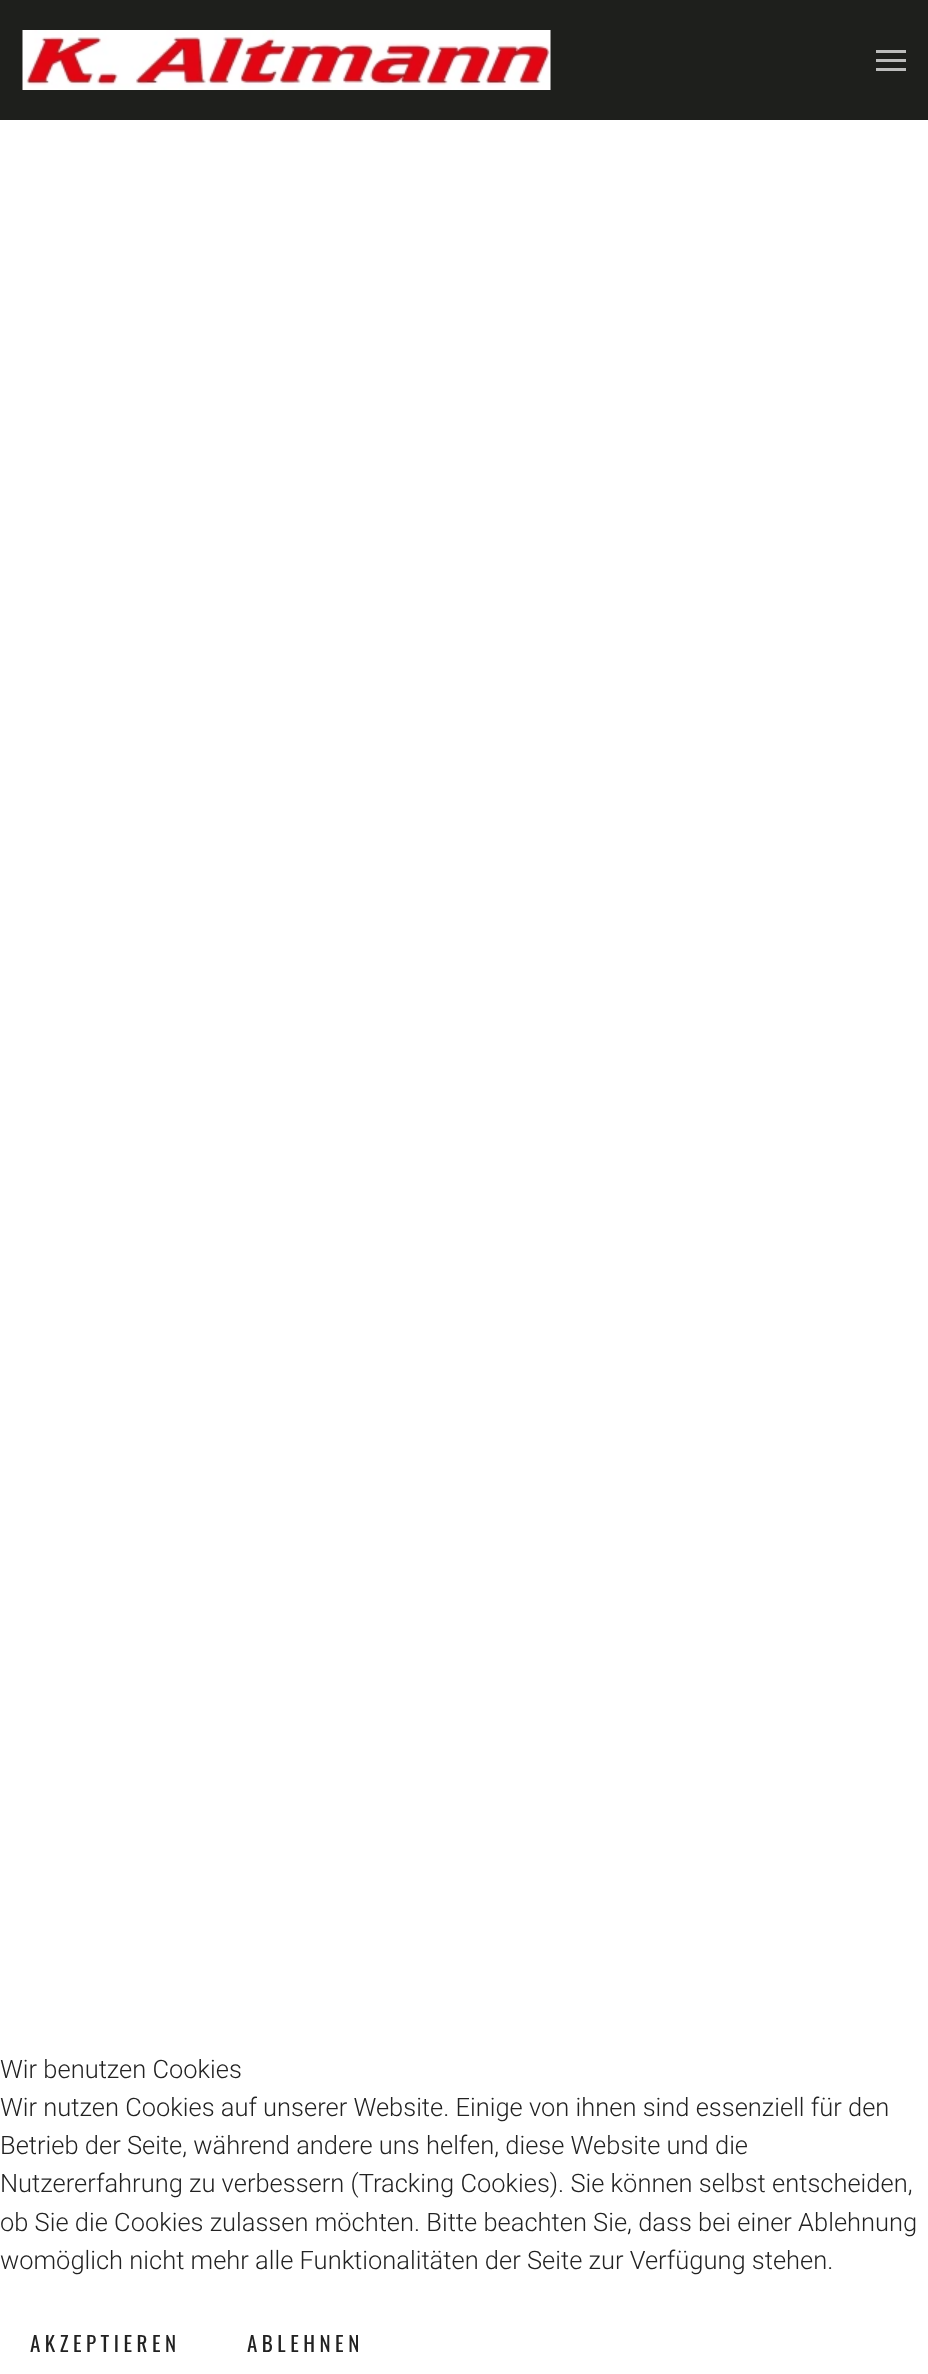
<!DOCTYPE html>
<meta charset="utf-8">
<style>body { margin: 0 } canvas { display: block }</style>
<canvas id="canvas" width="928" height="2374"></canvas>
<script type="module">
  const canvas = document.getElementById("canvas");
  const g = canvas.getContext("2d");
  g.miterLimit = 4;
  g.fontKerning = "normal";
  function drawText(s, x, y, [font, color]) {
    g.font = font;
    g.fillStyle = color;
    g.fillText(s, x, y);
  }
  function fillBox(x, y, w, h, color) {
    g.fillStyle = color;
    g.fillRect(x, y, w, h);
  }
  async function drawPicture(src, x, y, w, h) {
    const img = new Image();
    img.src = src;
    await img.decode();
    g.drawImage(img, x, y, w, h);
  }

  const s1 = ["300 25.5px Roboto", "#222222"];
  const s2 = ["21px Oswald", "#222222"];

  fillBox(0, 0, 928, 2374, "#FFFFFF");
  fillBox(0, 0, 928, 120, "#1E1F1C");
  await drawPicture("pic1.png", 22, 30, 529, 60);
  fillBox(876, 50, 30, 3, "#BCBCBB");
  fillBox(876, 59, 30, 3, "#BCBCBB");
  fillBox(876, 68, 30, 3, "#BCBCBB");
  drawText("Wir benutzen Cookies", 0, 2078, s1);
  drawText("Wir nutzen Cookies auf unserer Website. Einige von ihnen sind essenziell für den", 0, 2116, s1);
  drawText("Betrieb der Seite, während andere uns helfen, diese Website und die", 0, 2154, s1);
  drawText("Nutzererfahrung zu verbessern (Tracking Cookies). Sie können selbst entscheiden,", 0, 2192, s1);
  drawText("ob Sie die Cookies zulassen möchten. Bitte beachten Sie, dass bei einer Ablehnung", 0, 2231, s1);
  drawText("womöglich nicht mehr alle Funktionalitäten der Seite zur Verfügung stehen.", 0, 2269, s1);
  g.letterSpacing = "4.5px";
  drawText("AKZEPTIEREN", 30, 2352, s2);
  drawText("ABLEHNEN", 247, 2352, s2);
</script>
